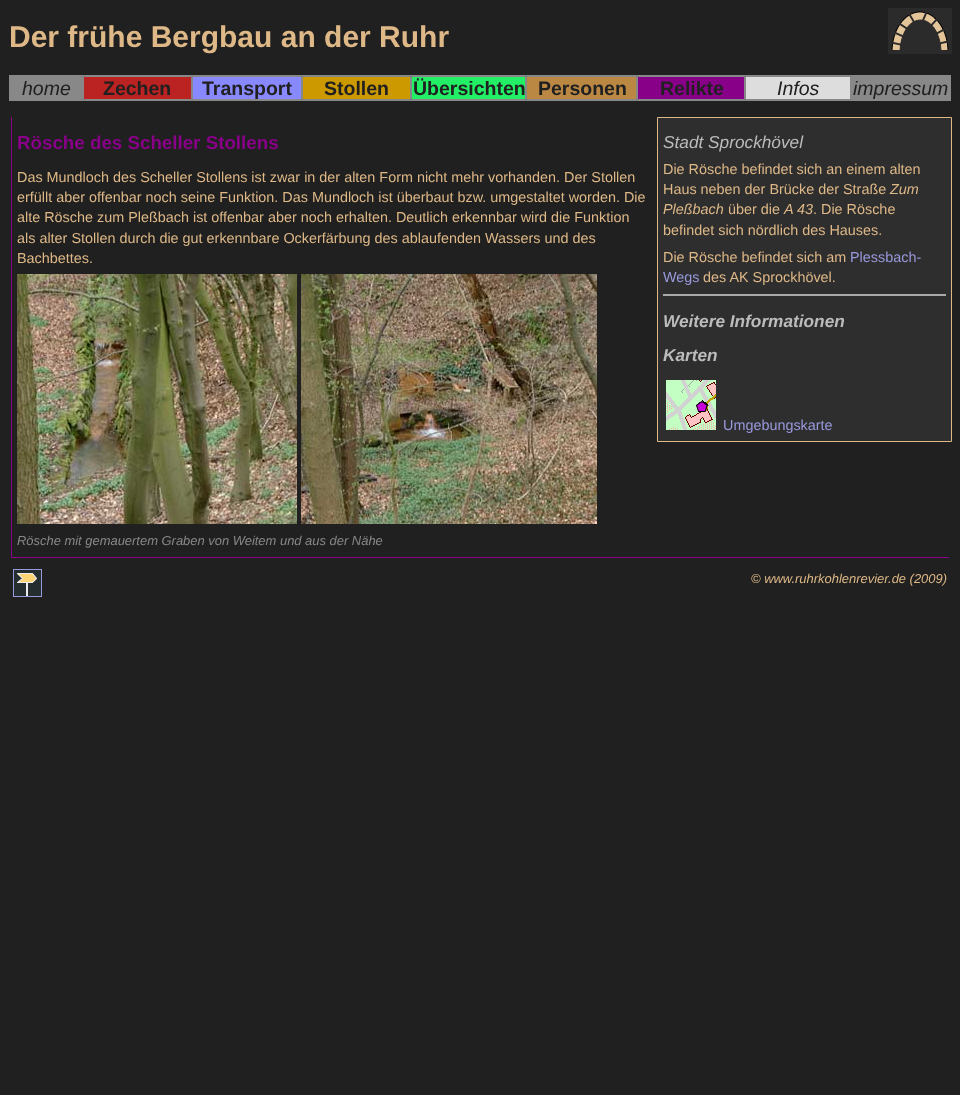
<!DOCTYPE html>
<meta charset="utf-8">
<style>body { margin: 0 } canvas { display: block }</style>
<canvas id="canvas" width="960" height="1095"></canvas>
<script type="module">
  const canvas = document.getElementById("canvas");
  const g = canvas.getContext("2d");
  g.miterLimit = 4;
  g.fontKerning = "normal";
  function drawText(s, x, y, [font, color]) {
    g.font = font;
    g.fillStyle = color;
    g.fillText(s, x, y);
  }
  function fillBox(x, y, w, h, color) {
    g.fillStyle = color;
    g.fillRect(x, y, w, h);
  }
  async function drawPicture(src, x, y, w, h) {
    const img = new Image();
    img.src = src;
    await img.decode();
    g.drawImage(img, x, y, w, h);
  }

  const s1 = ["bold 30px Liberation Sans", "#DEB887"];
  const s2 = ["italic 19.5px Liberation Sans", "#202020"];
  const s3 = ["bold 19.5px Liberation Sans", "#202020"];
  const s4 = ["bold 18.75px Liberation Sans", "#880088"];
  const s5 = ["14.4px Liberation Sans", "#DEB887"];
  const s6 = ["italic 12.95px Liberation Sans", "#888888"];
  const s7 = ["italic 17.25px Liberation Sans", "#BBBBBB"];
  const s8 = ["italic 14.4px Liberation Sans", "#DEB887"];
  const s9 = ["14.4px Liberation Sans", "#9999DD"];
  const s10 = ["italic bold 17.25px Liberation Sans", "#BBBBBB"];
  const s11 = ["italic 12.95px Liberation Sans", "#DEB887"];

  fillBox(0, 0, 960, 1095, "#202020");
  await drawPicture("pic1.png", 888, 8, 64, 46);
  drawText("Der frühe Bergbau an der Ruhr", 9, 47, s1);
  g.strokeStyle = "#888888";
  g.strokeRect(9.5, 75.5, 941, 25);
  fillBox(10, 76, 73, 24, "#888888");
  drawText("home", 22, 95, s2);
  g.fillStyle = "#BB2222";
  g.beginPath();
  g.rect(83.5, 76.5, 108, 23);
  g.fill();
  g.stroke();
  drawText("Zechen", 103, 95, s3);
  g.fillStyle = "#8888FF";
  g.beginPath();
  g.rect(192.5, 76.5, 109, 23);
  g.fill();
  g.stroke();
  drawText("Transport", 202, 95, s3);
  g.fillStyle = "#CC9900";
  g.beginPath();
  g.rect(302.5, 76.5, 108, 23);
  g.fill();
  g.stroke();
  drawText("Stollen", 324, 95, s3);
  g.fillStyle = "#22EE66";
  g.beginPath();
  g.rect(411.5, 76.5, 114, 23);
  g.fill();
  g.stroke();
  drawText("Übersichten", 413, 95, s3);
  g.fillStyle = "#BB8844";
  g.beginPath();
  g.rect(526.5, 76.5, 110, 23);
  g.fill();
  g.stroke();
  drawText("Personen", 538, 95, s3);
  g.fillStyle = "#880088";
  g.beginPath();
  g.rect(637.5, 76.5, 107, 23);
  g.fill();
  g.stroke();
  drawText("Relikte", 660, 95, s3);
  g.fillStyle = "#DDDDDD";
  g.beginPath();
  g.rect(745.5, 76.5, 105, 23);
  g.fill();
  g.stroke();
  drawText("Infos", 777, 95, s2);
  fillBox(851, 76, 99, 24, "#888888");
  drawText("impressum", 853, 95, s2);
  fillBox(11, 557, 938, 1, "#880088");
  fillBox(11, 117, 1, 441, "#880088");
  drawText("Rösche des Scheller Stollens", 17, 149, s4);
  drawText("Das Mundloch des Scheller Stollens ist zwar in der alten Form nicht mehr vorhanden. Der Stollen", 17, 182, s5);
  drawText("erfüllt aber offenbar noch seine Funktion. Das Mundloch ist überbaut bzw. umgestaltet worden. Die", 17, 202, s5);
  drawText("alte Rösche zum Pleßbach ist offenbar aber noch erhalten. Deutlich erkennbar wird die Funktion", 17, 222, s5);
  drawText("als alter Stollen durch die gut erkennbare Ockerfärbung des ablaufenden Wassers und des", 17, 243, s5);
  drawText("Bachbettes.", 17, 263, s5);
  await drawPicture("pic2.png", 17, 274, 280, 250);
  await drawPicture("pic3.png", 301, 274, 296, 250);
  drawText("Rösche mit gemauertem Graben von Weitem und aus der Nähe", 17, 545, s6);
  g.fillStyle = "#2E2E2E";
  g.beginPath();
  g.rect(657.5, 117.5, 294, 324);
  g.fill();
  g.strokeStyle = "#DEB887";
  g.stroke();
  drawText("Stadt Sprockhövel", 663, 148, s7);
  drawText("Die Rösche befindet sich an einem alten", 663, 174, s5);
  drawText("Haus neben der Brücke der Straße", 663, 194, s5);
  drawText("Zum", 890, 194, s8);
  drawText("Pleßbach", 663, 214, s8);
  drawText("über die", 728, 214, s5);
  drawText("A 43", 784, 214, s8);
  drawText(". Die Rösche", 813, 214, s5);
  drawText("befindet sich nördlich des Hauses.", 663, 235, s5);
  drawText("Die Rösche befindet sich am", 663, 262, s5);
  drawText("Plessbach-", 850, 262, s9);
  drawText("Wegs", 663, 282, s9);
  drawText("des AK Sprockhövel.", 703, 282, s5);
  fillBox(663, 294, 283, 2, "#A9A9A9");
  drawText("Weitere Informationen", 663, 327, s10);
  drawText("Karten", 663, 361, s10);
  await drawPicture("pic4.png", 666, 380, 50, 50);
  drawText("Umgebungskarte", 723, 430, s9);
  g.strokeStyle = "#9999DD";
  g.strokeRect(13.5, 569.5, 28, 27);
  await drawPicture("pic5.png", 14, 570, 27, 26);
  drawText("© www.ruhrkohlenrevier.de (2009)", 751, 583, s11);
</script>
